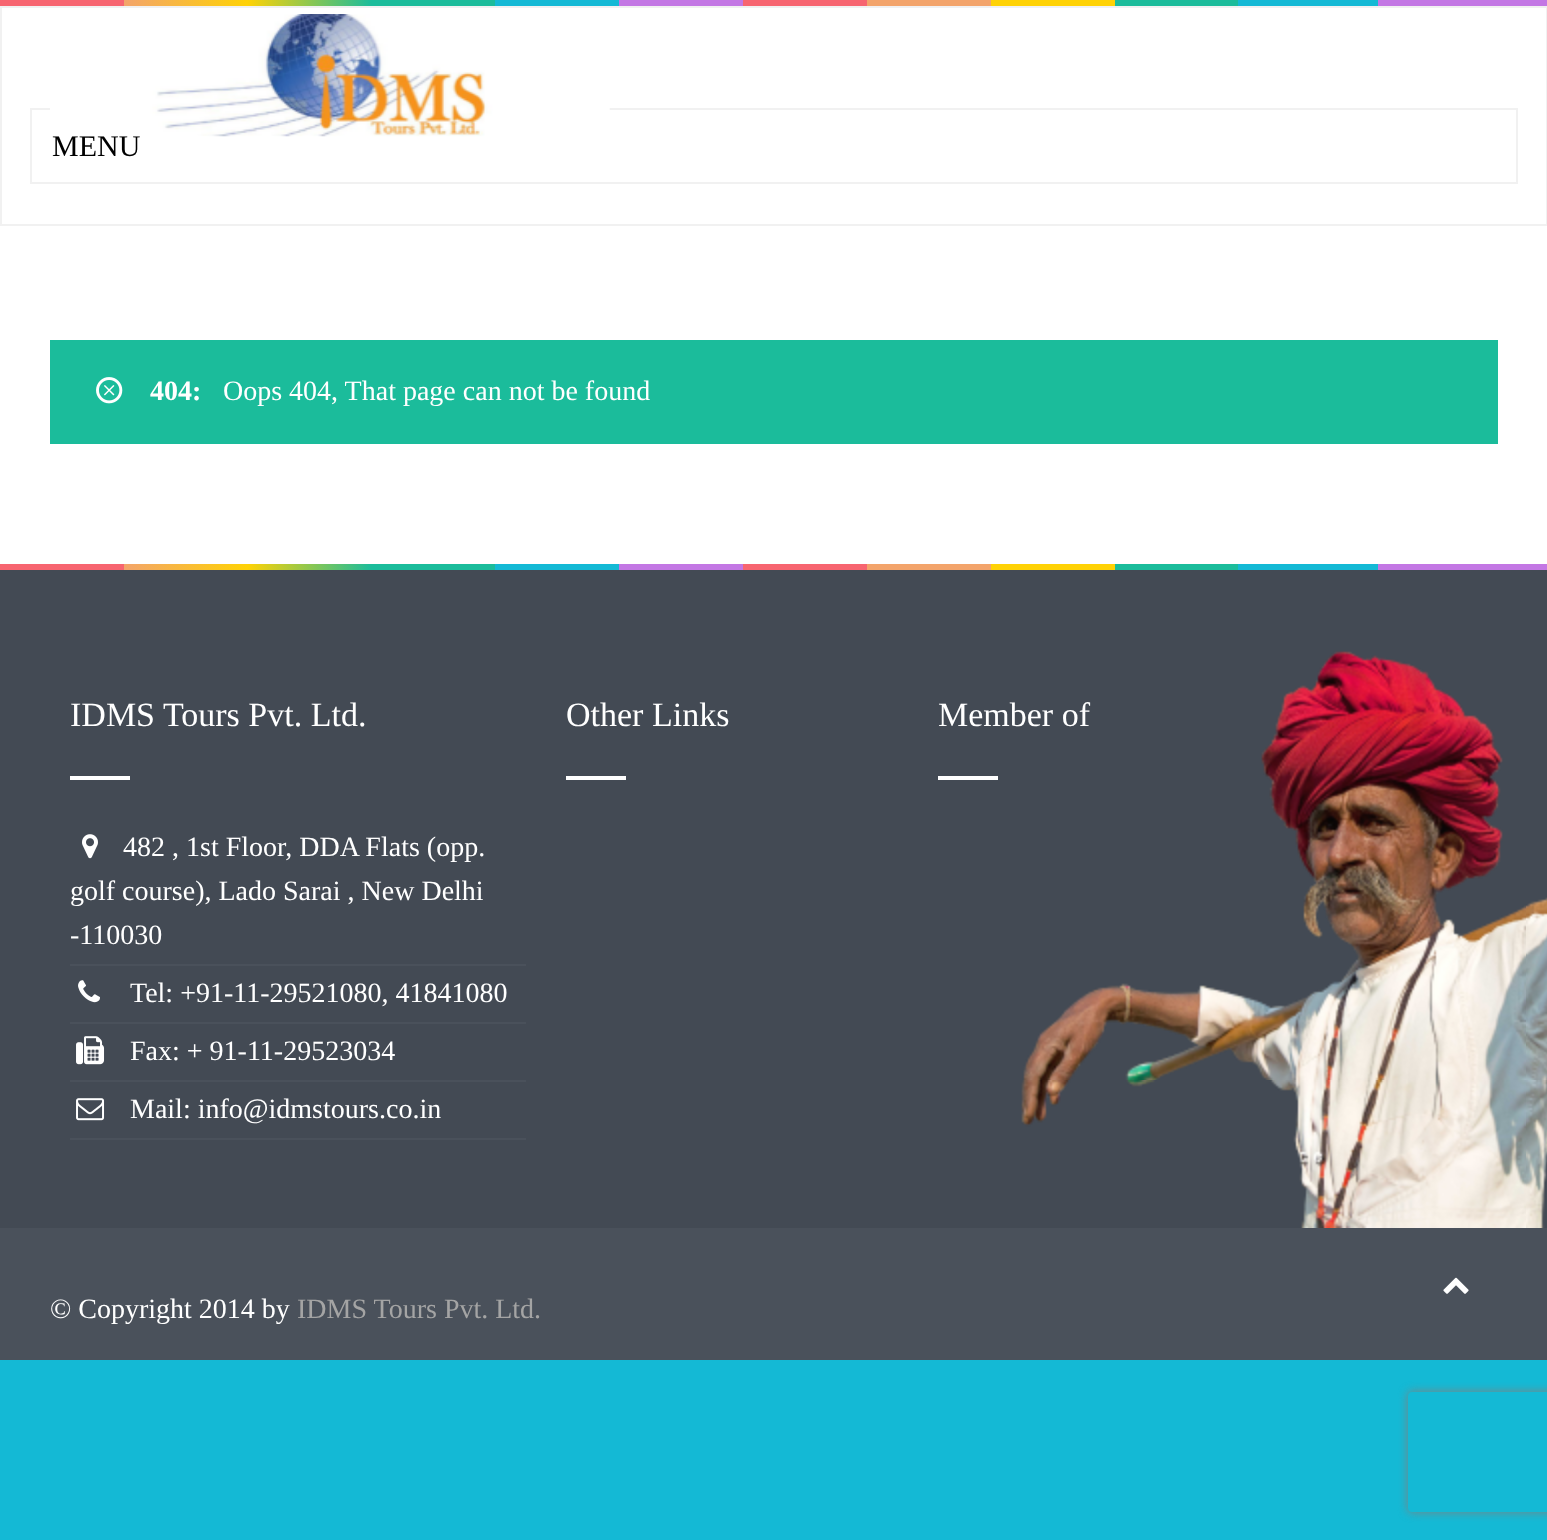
<!DOCTYPE html>
<meta charset="utf-8">
<style>body { margin: 0 } canvas { display: block }</style>
<canvas id="canvas" width="1547" height="1540"></canvas>
<script type="module">
  const canvas = document.getElementById("canvas");
  const g = canvas.getContext("2d");
  g.miterLimit = 4;
  g.fontKerning = "normal";
  function drawText(s, x, y, [font, color]) {
    g.font = font;
    g.fillStyle = color;
    g.fillText(s, x, y);
  }
  function fillBox(x, y, w, h, color) {
    g.fillStyle = color;
    g.fillRect(x, y, w, h);
  }
  async function drawPicture(src, x, y, w, h) {
    const img = new Image();
    img.src = src;
    await img.decode();
    g.drawImage(img, x, y, w, h);
  }
  let gradient;

  const s1 = ["30px Liberation Serif", "#000000"];
  const s2 = ["bold 28px Liberation Serif", "#FFFFFF"];
  const s3 = ["28px Liberation Serif", "#FFFFFF"];
  const s4 = ["34px Liberation Serif", "#FFFFFF"];
  const s5 = ["28px Liberation Serif", "#A4A4A4"];

  fillBox(0, 0, 1547, 1540, "#14B9D5");
  fillBox(0, 8, 1547, 556, "#FFFFFF");
  gradient = g.createLinearGradient(0, 3, 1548, 3);
  gradient.addColorStop(0, "#F76570");
  gradient.addColorStop(0.08, "#F76570");
  gradient.addColorStop(0.08, "#F3A46B");
  gradient.addColorStop(0.16, "#FFD205");
  gradient.addColorStop(0.24, "#1BBC9B");
  gradient.addColorStop(0.32, "#1BBC9B");
  gradient.addColorStop(0.32, "#14B9D5");
  gradient.addColorStop(0.4, "#14B9D5");
  gradient.addColorStop(0.4, "#C377E4");
  gradient.addColorStop(0.48, "#C377E4");
  gradient.addColorStop(0.48, "#F76570");
  gradient.addColorStop(0.56, "#F76570");
  gradient.addColorStop(0.56, "#F3A46B");
  gradient.addColorStop(0.64, "#F3A46B");
  gradient.addColorStop(0.64, "#FFD205");
  gradient.addColorStop(0.72, "#FFD205");
  gradient.addColorStop(0.72, "#1BBC9B");
  gradient.addColorStop(0.8, "#1BBC9B");
  gradient.addColorStop(0.8, "#14B9D5");
  gradient.addColorStop(0.89, "#14B9D5");
  gradient.addColorStop(0.89, "#C377E4");
  gradient.addColorStop(1, "#C377E4");
  g.fillStyle = gradient;
  g.fillRect(0, 0, 1547, 6);
  g.strokeStyle = "#F1F1F1";
  g.lineWidth = 2;
  g.strokeRect(1, 7, 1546, 218);
  g.strokeRect(31, 109, 1486, 74);
  drawText("MENU", 52, 156, s1);
  await drawPicture("pic1.png", 50, 14, 560, 123);
  fillBox(50, 340, 1448, 104, "#1BBC9B");
  await drawPicture("pic2.png", 96, 377, 27, 27);
  drawText("404:", 150, 400, s2);
  drawText("Oops 404, That page can not be found", 223, 400, s3);
  gradient = g.createLinearGradient(0, 567, 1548, 567);
  gradient.addColorStop(0, "#F76570");
  gradient.addColorStop(0.08, "#F76570");
  gradient.addColorStop(0.08, "#F3A46B");
  gradient.addColorStop(0.16, "#FFD205");
  gradient.addColorStop(0.24, "#1BBC9B");
  gradient.addColorStop(0.32, "#1BBC9B");
  gradient.addColorStop(0.32, "#14B9D5");
  gradient.addColorStop(0.4, "#14B9D5");
  gradient.addColorStop(0.4, "#C377E4");
  gradient.addColorStop(0.48, "#C377E4");
  gradient.addColorStop(0.48, "#F76570");
  gradient.addColorStop(0.56, "#F76570");
  gradient.addColorStop(0.56, "#F3A46B");
  gradient.addColorStop(0.64, "#F3A46B");
  gradient.addColorStop(0.64, "#FFD205");
  gradient.addColorStop(0.72, "#FFD205");
  gradient.addColorStop(0.72, "#1BBC9B");
  gradient.addColorStop(0.8, "#1BBC9B");
  gradient.addColorStop(0.8, "#14B9D5");
  gradient.addColorStop(0.89, "#14B9D5");
  gradient.addColorStop(0.89, "#C377E4");
  gradient.addColorStop(1, "#C377E4");
  g.fillStyle = gradient;
  g.fillRect(0, 564, 1547, 6);
  fillBox(0, 570, 1547, 658, "#434A54");
  await drawPicture("pic3.png", 1021, 651, 526, 577);
  drawText("IDMS Tours Pvt. Ltd.", 70, 726, s4);
  fillBox(70, 776, 60, 4, "#FFFFFF");
  fillBox(70, 964, 456, 2, "#4A515B");
  await drawPicture("pic4.png", 82, 834, 16, 25);
  drawText("482 , 1st Floor, DDA Flats (opp.", 123, 856, s3);
  drawText("golf course), Lado Sarai , New Delhi", 70, 900, s3);
  drawText("-110030", 70, 944, s3);
  fillBox(70, 1022, 456, 2, "#4A515B");
  await drawPicture("pic5.png", 78, 980, 22, 23);
  drawText("Tel: +91-11-29521080, 41841080", 130, 1002, s3);
  fillBox(70, 1080, 456, 2, "#4A515B");
  await drawPicture("pic6.png", 76, 1036, 29, 29);
  drawText("Fax: + 91-11-29523034", 130, 1060, s3);
  fillBox(70, 1138, 456, 2, "#4A515B");
  await drawPicture("pic7.png", 76, 1098, 29, 23);
  drawText("Mail: info@idmstours.co.in", 130, 1118, s3);
  drawText("Other Links", 566, 726, s4);
  fillBox(566, 776, 60, 4, "#FFFFFF");
  drawText("Member of", 938, 726, s4);
  fillBox(938, 776, 60, 4, "#FFFFFF");
  fillBox(0, 1228, 1547, 132, "#4A515B");
  await drawPicture("pic8.png", 1443, 1277, 26, 17);
  drawText("© Copyright 2014 by", 50, 1318, s3);
  drawText("IDMS Tours Pvt. Ltd.", 297, 1318, s5);
  g.save();
  g.beginPath();
  g.moveTo(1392, 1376);
  g.lineTo(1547, 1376);
  g.lineTo(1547, 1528);
  g.lineTo(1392, 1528);
  g.closePath();
  g.moveTo(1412, 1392);
  g.lineTo(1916, 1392);
  g.bezierCurveTo(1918, 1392, 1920, 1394, 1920, 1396);
  g.lineTo(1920, 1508);
  g.bezierCurveTo(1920, 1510, 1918, 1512, 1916, 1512);
  g.lineTo(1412, 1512);
  g.bezierCurveTo(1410, 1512, 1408, 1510, 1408, 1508);
  g.lineTo(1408, 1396);
  g.bezierCurveTo(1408, 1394, 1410, 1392, 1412, 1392);
  g.closePath();
  g.clip("evenodd");
  g.fillStyle = "#808080";
  g.filter = "blur(5px)";
  g.beginPath();
  g.roundRect(1408, 1392, 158, 120, 4);
  g.fill();
  g.filter = "none";
  g.restore();
</script>
